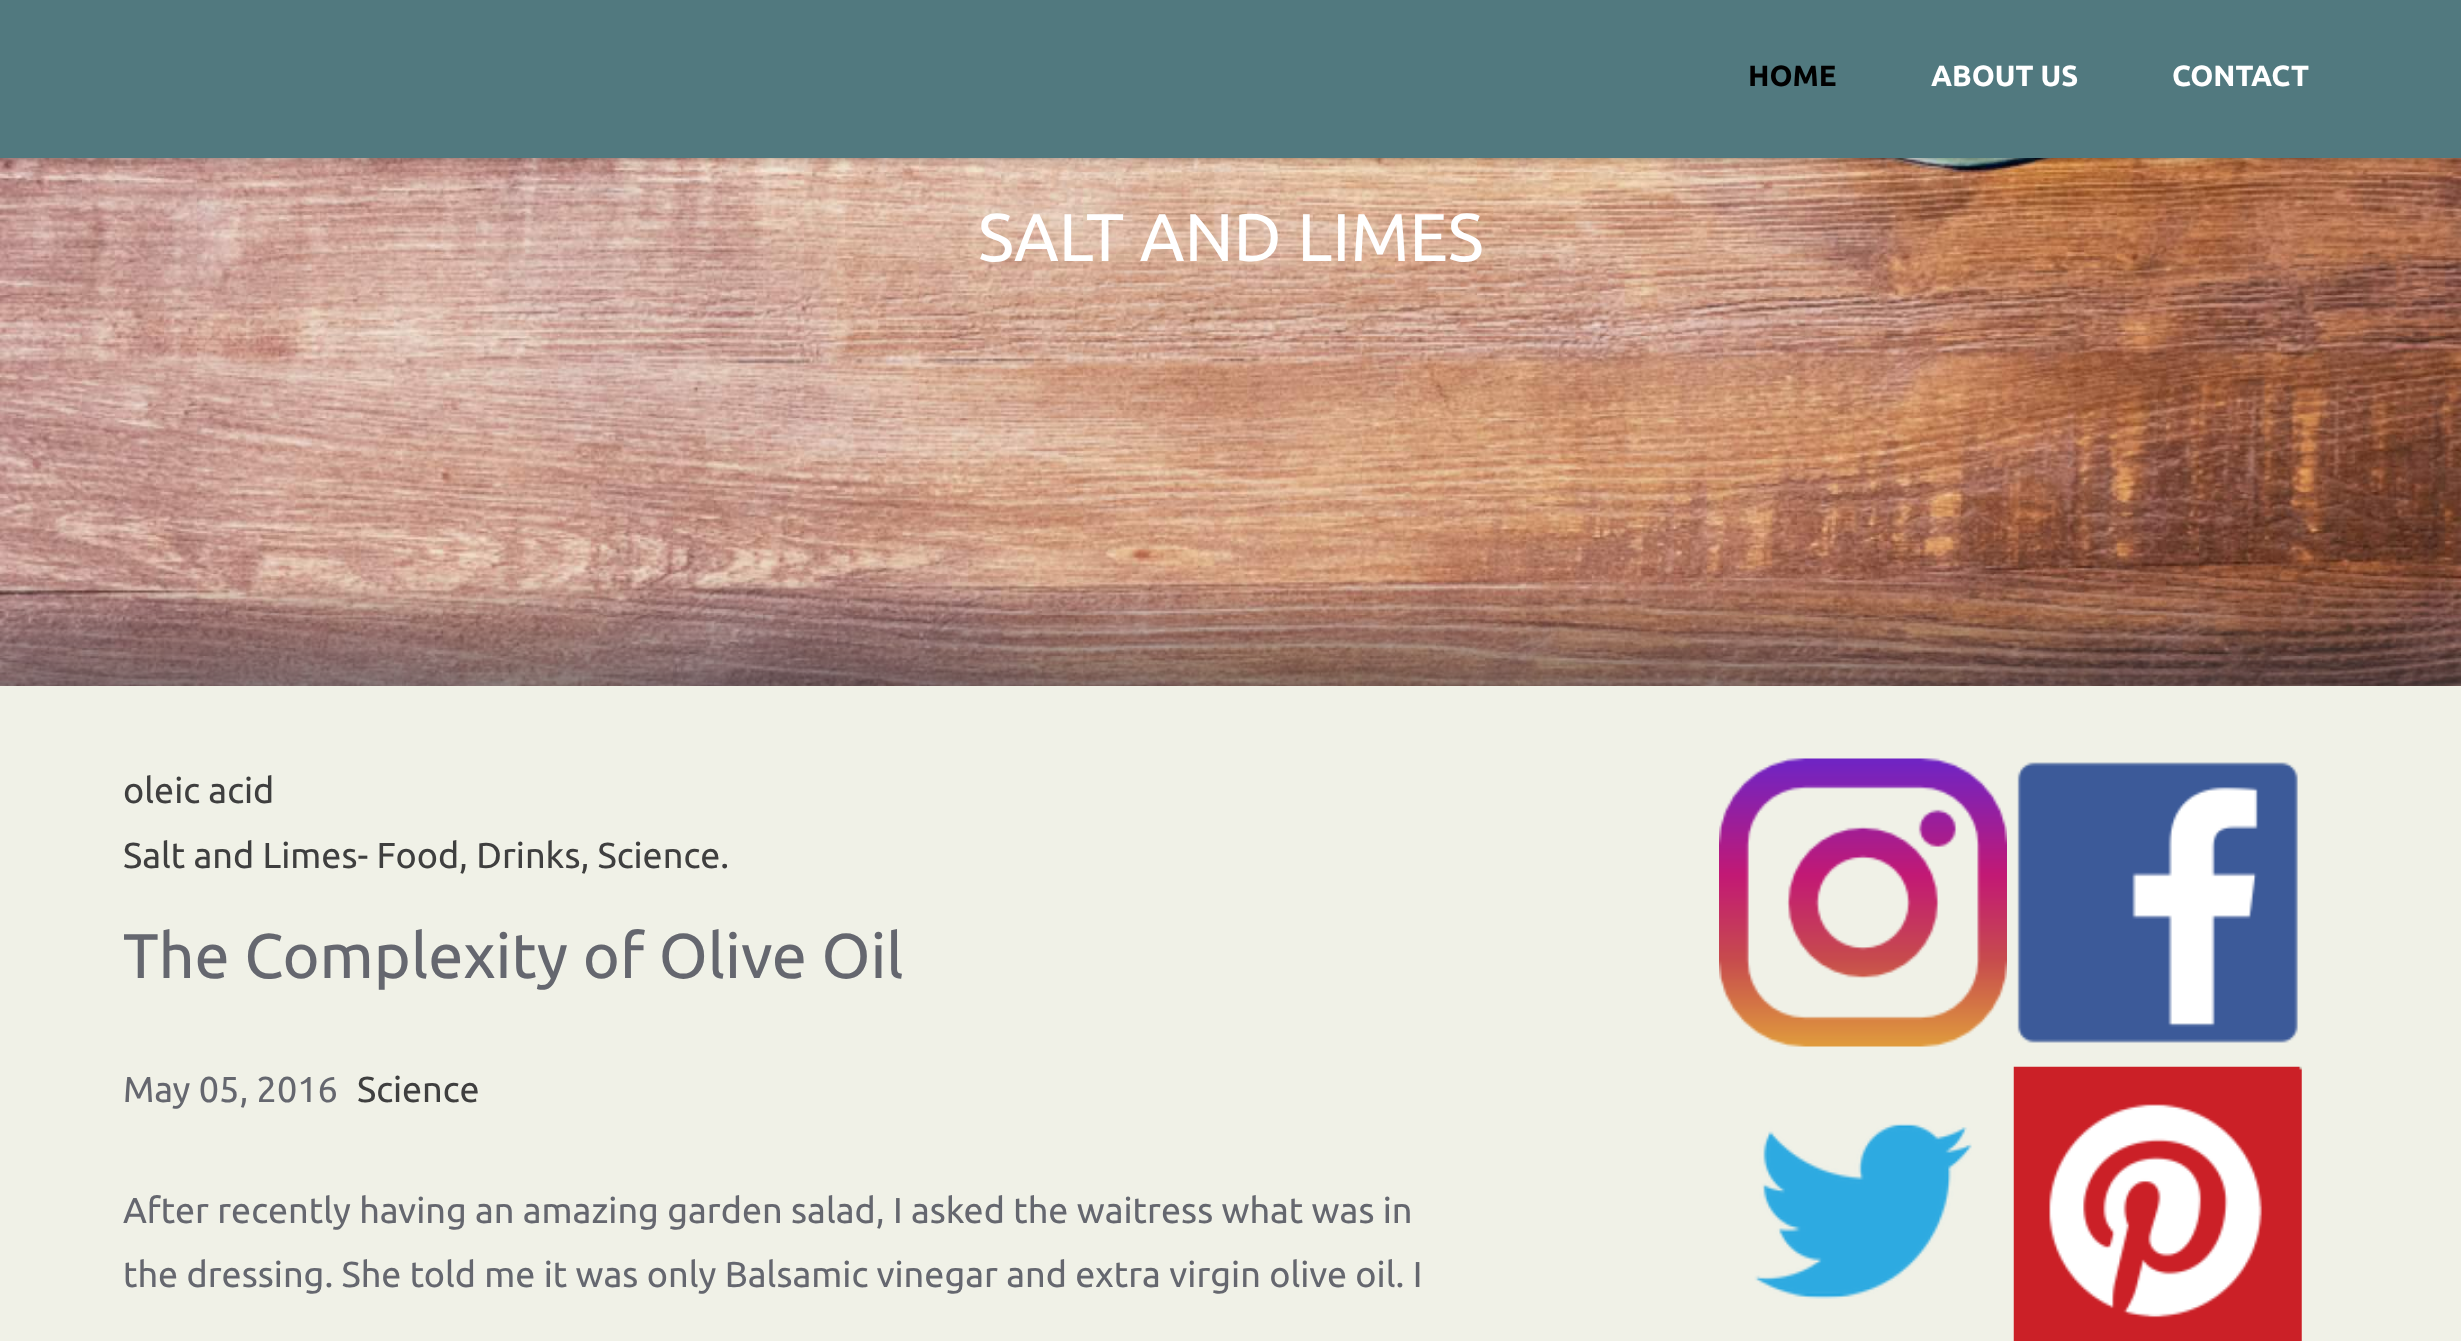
<!DOCTYPE html>
<meta charset="utf-8">
<style>body { margin: 0 } canvas { display: block }</style>
<canvas id="canvas" width="2461" height="1341"></canvas>
<script type="module">
  const canvas = document.getElementById("canvas");
  const g = canvas.getContext("2d");
  g.miterLimit = 4;
  g.fontKerning = "normal";
  function drawText(s, x, y, [font, color]) {
    g.font = font;
    g.fillStyle = color;
    g.fillText(s, x, y);
  }
  function fillBox(x, y, w, h, color) {
    g.fillStyle = color;
    g.fillRect(x, y, w, h);
  }
  async function drawPicture(src, x, y, w, h) {
    const img = new Image();
    img.src = src;
    await img.decode();
    g.drawImage(img, x, y, w, h);
  }

  const s1 = ["bold 29.25px Ubuntu", "#000000"];
  const s2 = ["bold 29.25px Ubuntu", "#FFFFFF"];
  const s3 = ["67.5px Ubuntu", "#FFFFFF"];
  const s4 = ["36px Ubuntu", "#3F3F3F"];
  const s5 = ["63px Ubuntu", "#65676F"];
  const s6 = ["36px Ubuntu", "#65676F"];

  fillBox(0, 0, 2461, 1341, "#FFFFFF");
  await drawPicture("pic1.png", 0, 158, 2461, 528);
  g.fillStyle = "rgba(0, 0, 0, 0.2)";
  g.filter = "blur(3.5px)";
  g.beginPath();
  g.rect(0, 2, 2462, 158);
  g.fill();
  g.filter = "none";
  fillBox(0, 0, 2461, 158, "#51797F");
  drawText("HOME", 1748, 86, s1);
  drawText("ABOUT US", 1931, 86, s2);
  drawText("CONTACT", 2172, 86, s2);
  drawText("SALT AND LIMES", 978, 261, s3);
  fillBox(0, 686, 2461, 655, "#F0F1E7");
  drawText("oleic acid", 123, 803, s4);
  drawText("Salt and Limes- Food, Drinks, Science.", 123, 868, s4);
  drawText("The Complexity of Olive Oil", 123, 978, s5);
  drawText("May 05, 2016", 123, 1102, s6);
  drawText("Science", 357, 1102, s4);
  drawText("After recently having an amazing garden salad, I asked the waitress what was in", 123, 1223, s6);
  drawText("the dressing. She told me it was only Balsamic vinegar and extra virgin olive oil. I", 123, 1287, s6);
  await drawPicture("pic2.png", 1719, 758, 288, 289);
  await drawPicture("pic3.png", 2017, 762, 281, 281);
  await drawPicture("pic4.png", 1754, 1123, 218, 176);
  await drawPicture("pic5.png", 2013, 1066, 289, 275);
</script>
